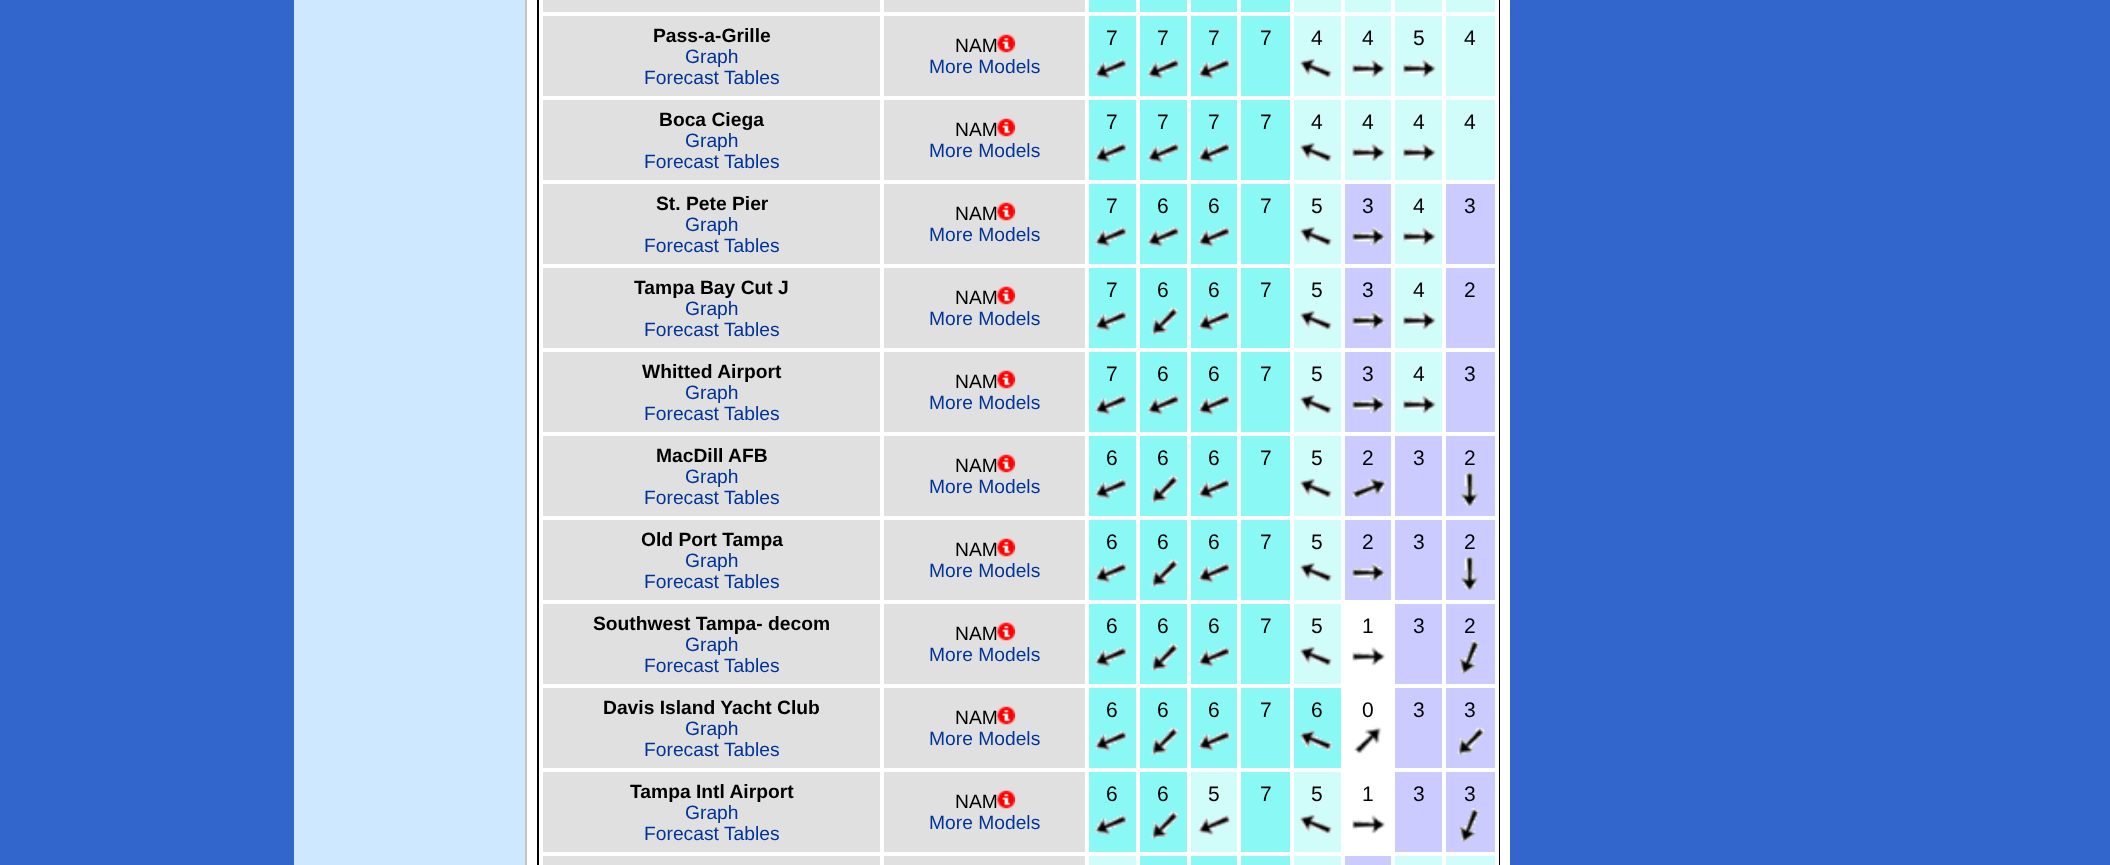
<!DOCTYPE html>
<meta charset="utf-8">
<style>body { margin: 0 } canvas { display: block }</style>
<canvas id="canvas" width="2110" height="865"></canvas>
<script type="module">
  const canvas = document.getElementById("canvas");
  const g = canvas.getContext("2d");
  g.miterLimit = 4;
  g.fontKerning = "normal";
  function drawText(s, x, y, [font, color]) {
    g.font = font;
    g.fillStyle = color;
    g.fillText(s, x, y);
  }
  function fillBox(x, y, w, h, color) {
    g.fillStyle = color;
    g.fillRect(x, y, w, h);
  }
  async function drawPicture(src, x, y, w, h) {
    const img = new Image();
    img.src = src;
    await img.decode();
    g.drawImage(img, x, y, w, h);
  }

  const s1 = ["bold 19.25px Liberation Sans", "#000000"];
  const s2 = ["19.25px Liberation Sans", "#003399"];
  const s3 = ["19.25px Liberation Sans", "#000000"];
  const s4 = ["21px Liberation Sans", "#000000"];

  fillBox(0, 0, 2110, 865, "#3366CC");
  fillBox(294, 0, 231, 865, "#CEE9FF");
  fillBox(525, 0, 2, 865, "#C4C4C4");
  fillBox(527, 0, 983, 865, "#FFFFFF");
  g.strokeStyle = "#000000";
  g.lineWidth = 2;
  g.strokeRect(538, -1, 961, 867);
  fillBox(543, 0, 542, 865, "#E0E0E0");
  fillBox(880, 852, 209, 4, "#FFFFFF");
  fillBox(880, 852, 4, 13, "#FFFFFF");
  fillBox(539, 852, 345, 4, "#FFFFFF");
  fillBox(1089, 856, 47, 9, "#D0FCFA");
  fillBox(1140, 856, 47, 9, "#8AF8F4");
  fillBox(1191, 856, 46, 9, "#8AF8F4");
  fillBox(1241, 856, 49, 9, "#8AF8F4");
  fillBox(1294, 856, 47, 9, "#D0FCFA");
  fillBox(1345, 856, 46, 9, "#CBCBFF");
  fillBox(1395, 856, 47, 9, "#D0FCFA");
  fillBox(1446, 856, 49, 9, "#D0FCFA");
  fillBox(1498, 0, 1, 865, "#FFFFFF");
  fillBox(880, 12, 209, 4, "#FFFFFF");
  fillBox(880, 96, 209, 4, "#FFFFFF");
  fillBox(880, 180, 209, 4, "#FFFFFF");
  fillBox(880, 264, 209, 4, "#FFFFFF");
  fillBox(880, 348, 209, 4, "#FFFFFF");
  fillBox(880, 432, 209, 4, "#FFFFFF");
  fillBox(880, 516, 209, 4, "#FFFFFF");
  fillBox(880, 600, 209, 4, "#FFFFFF");
  fillBox(880, 684, 209, 4, "#FFFFFF");
  fillBox(880, 768, 209, 4, "#FFFFFF");
  fillBox(880, 768, 4, 88, "#FFFFFF");
  fillBox(539, 768, 345, 4, "#FFFFFF");
  fillBox(880, 684, 4, 88, "#FFFFFF");
  fillBox(539, 684, 345, 4, "#FFFFFF");
  fillBox(880, 600, 4, 88, "#FFFFFF");
  fillBox(539, 600, 345, 4, "#FFFFFF");
  fillBox(880, 516, 4, 88, "#FFFFFF");
  fillBox(539, 516, 345, 4, "#FFFFFF");
  fillBox(880, 432, 4, 88, "#FFFFFF");
  fillBox(539, 432, 345, 4, "#FFFFFF");
  fillBox(880, 348, 4, 88, "#FFFFFF");
  fillBox(539, 348, 345, 4, "#FFFFFF");
  fillBox(880, 264, 4, 88, "#FFFFFF");
  fillBox(539, 264, 345, 4, "#FFFFFF");
  fillBox(880, 180, 4, 88, "#FFFFFF");
  fillBox(539, 180, 345, 4, "#FFFFFF");
  fillBox(880, 96, 4, 88, "#FFFFFF");
  fillBox(539, 96, 345, 4, "#FFFFFF");
  fillBox(880, 12, 4, 88, "#FFFFFF");
  fillBox(539, 12, 345, 4, "#FFFFFF");
  fillBox(880, 0, 4, 16, "#FFFFFF");
  fillBox(1089, 0, 47, 12, "#8AF8F4");
  fillBox(1140, 0, 47, 12, "#8AF8F4");
  fillBox(1191, 0, 46, 12, "#8AF8F4");
  fillBox(1241, 0, 49, 12, "#8AF8F4");
  fillBox(1294, 0, 47, 12, "#D0FCFA");
  fillBox(1345, 0, 46, 12, "#D0FCFA");
  fillBox(1395, 0, 47, 12, "#D0FCFA");
  fillBox(1446, 0, 49, 12, "#D0FCFA");
  drawText("Pass-a-Grille", 653, 42, s1);
  drawText("Graph", 685, 63, s2);
  drawText("Forecast Tables", 644, 84, s2);
  drawText("NAM", 955, 52, s3);
  await drawPicture("pic1.png", 997, 34, 18, 19);
  drawText("More Models", 929, 73, s2);
  fillBox(1089, 16, 47, 80, "#8AF8F4");
  drawText("7", 1106, 45, s4);
  await drawPicture("pic2.png", 1095, 58, 33, 21);
  fillBox(1140, 16, 47, 80, "#8AF8F4");
  drawText("7", 1157, 45, s4);
  await drawPicture("pic3.png", 1147, 58, 33, 21);
  fillBox(1191, 16, 46, 80, "#8AF8F4");
  drawText("7", 1208, 45, s4);
  await drawPicture("pic4.png", 1198, 58, 33, 21);
  fillBox(1241, 16, 49, 80, "#8AF8F4");
  drawText("7", 1260, 45, s4);
  fillBox(1294, 16, 47, 80, "#D0FCFA");
  drawText("4", 1311, 45, s4);
  await drawPicture("pic5.png", 1300, 58, 33, 21);
  fillBox(1345, 16, 46, 80, "#D0FCFA");
  drawText("4", 1362, 45, s4);
  await drawPicture("pic6.png", 1352, 59, 33, 19);
  fillBox(1395, 16, 47, 80, "#D0FCFA");
  drawText("5", 1413, 45, s4);
  await drawPicture("pic7.png", 1403, 59, 33, 19);
  fillBox(1446, 16, 49, 80, "#D0FCFA");
  drawText("4", 1464, 45, s4);
  drawText("Boca Ciega", 659, 126, s1);
  drawText("Graph", 685, 147, s2);
  drawText("Forecast Tables", 644, 168, s2);
  drawText("NAM", 955, 136, s3);
  await drawPicture("pic1.png", 997, 118, 18, 19);
  drawText("More Models", 929, 157, s2);
  fillBox(1089, 100, 47, 80, "#8AF8F4");
  drawText("7", 1106, 129, s4);
  await drawPicture("pic2.png", 1095, 142, 33, 21);
  fillBox(1140, 100, 47, 80, "#8AF8F4");
  drawText("7", 1157, 129, s4);
  await drawPicture("pic3.png", 1147, 142, 33, 21);
  fillBox(1191, 100, 46, 80, "#8AF8F4");
  drawText("7", 1208, 129, s4);
  await drawPicture("pic4.png", 1198, 142, 33, 21);
  fillBox(1241, 100, 49, 80, "#8AF8F4");
  drawText("7", 1260, 129, s4);
  fillBox(1294, 100, 47, 80, "#D0FCFA");
  drawText("4", 1311, 129, s4);
  await drawPicture("pic5.png", 1300, 142, 33, 21);
  fillBox(1345, 100, 46, 80, "#D0FCFA");
  drawText("4", 1362, 129, s4);
  await drawPicture("pic6.png", 1352, 143, 33, 19);
  fillBox(1395, 100, 47, 80, "#D0FCFA");
  drawText("4", 1413, 129, s4);
  await drawPicture("pic7.png", 1403, 143, 33, 19);
  fillBox(1446, 100, 49, 80, "#D0FCFA");
  drawText("4", 1464, 129, s4);
  drawText("St. Pete Pier", 656, 210, s1);
  drawText("Graph", 685, 231, s2);
  drawText("Forecast Tables", 644, 252, s2);
  drawText("NAM", 955, 220, s3);
  await drawPicture("pic1.png", 997, 202, 18, 19);
  drawText("More Models", 929, 241, s2);
  fillBox(1089, 184, 47, 80, "#8AF8F4");
  drawText("7", 1106, 213, s4);
  await drawPicture("pic2.png", 1095, 226, 33, 21);
  fillBox(1140, 184, 47, 80, "#8AF8F4");
  drawText("6", 1157, 213, s4);
  await drawPicture("pic3.png", 1147, 226, 33, 21);
  fillBox(1191, 184, 46, 80, "#8AF8F4");
  drawText("6", 1208, 213, s4);
  await drawPicture("pic4.png", 1198, 226, 33, 21);
  fillBox(1241, 184, 49, 80, "#8AF8F4");
  drawText("7", 1260, 213, s4);
  fillBox(1294, 184, 47, 80, "#D0FCFA");
  drawText("5", 1311, 213, s4);
  await drawPicture("pic5.png", 1300, 226, 33, 21);
  fillBox(1345, 184, 46, 80, "#CBCBFF");
  drawText("3", 1362, 213, s4);
  await drawPicture("pic8.png", 1352, 227, 33, 19);
  fillBox(1395, 184, 47, 80, "#D0FCFA");
  drawText("4", 1413, 213, s4);
  await drawPicture("pic7.png", 1403, 227, 33, 19);
  fillBox(1446, 184, 49, 80, "#CBCBFF");
  drawText("3", 1464, 213, s4);
  drawText("Tampa Bay Cut J", 634, 294, s1);
  drawText("Graph", 685, 315, s2);
  drawText("Forecast Tables", 644, 336, s2);
  drawText("NAM", 955, 304, s3);
  await drawPicture("pic1.png", 997, 286, 18, 19);
  drawText("More Models", 929, 325, s2);
  fillBox(1089, 268, 47, 80, "#8AF8F4");
  drawText("7", 1106, 297, s4);
  await drawPicture("pic2.png", 1095, 310, 33, 21);
  fillBox(1140, 268, 47, 80, "#8AF8F4");
  drawText("6", 1157, 297, s4);
  await drawPicture("pic9.png", 1151, 307, 28, 28);
  fillBox(1191, 268, 46, 80, "#8AF8F4");
  drawText("6", 1208, 297, s4);
  await drawPicture("pic4.png", 1198, 310, 33, 21);
  fillBox(1241, 268, 49, 80, "#8AF8F4");
  drawText("7", 1260, 297, s4);
  fillBox(1294, 268, 47, 80, "#D0FCFA");
  drawText("5", 1311, 297, s4);
  await drawPicture("pic5.png", 1300, 310, 33, 21);
  fillBox(1345, 268, 46, 80, "#CBCBFF");
  drawText("3", 1362, 297, s4);
  await drawPicture("pic8.png", 1352, 311, 33, 19);
  fillBox(1395, 268, 47, 80, "#D0FCFA");
  drawText("4", 1413, 297, s4);
  await drawPicture("pic7.png", 1403, 311, 33, 19);
  fillBox(1446, 268, 49, 80, "#CBCBFF");
  drawText("2", 1464, 297, s4);
  drawText("Whitted Airport", 642, 378, s1);
  drawText("Graph", 685, 399, s2);
  drawText("Forecast Tables", 644, 420, s2);
  drawText("NAM", 955, 388, s3);
  await drawPicture("pic1.png", 997, 370, 18, 19);
  drawText("More Models", 929, 409, s2);
  fillBox(1089, 352, 47, 80, "#8AF8F4");
  drawText("7", 1106, 381, s4);
  await drawPicture("pic2.png", 1095, 394, 33, 21);
  fillBox(1140, 352, 47, 80, "#8AF8F4");
  drawText("6", 1157, 381, s4);
  await drawPicture("pic3.png", 1147, 394, 33, 21);
  fillBox(1191, 352, 46, 80, "#8AF8F4");
  drawText("6", 1208, 381, s4);
  await drawPicture("pic4.png", 1198, 394, 33, 21);
  fillBox(1241, 352, 49, 80, "#8AF8F4");
  drawText("7", 1260, 381, s4);
  fillBox(1294, 352, 47, 80, "#D0FCFA");
  drawText("5", 1311, 381, s4);
  await drawPicture("pic5.png", 1300, 394, 33, 21);
  fillBox(1345, 352, 46, 80, "#CBCBFF");
  drawText("3", 1362, 381, s4);
  await drawPicture("pic8.png", 1352, 395, 33, 19);
  fillBox(1395, 352, 47, 80, "#D0FCFA");
  drawText("4", 1413, 381, s4);
  await drawPicture("pic7.png", 1403, 395, 33, 19);
  fillBox(1446, 352, 49, 80, "#CBCBFF");
  drawText("3", 1464, 381, s4);
  drawText("MacDill AFB", 656, 462, s1);
  drawText("Graph", 685, 483, s2);
  drawText("Forecast Tables", 644, 504, s2);
  drawText("NAM", 955, 472, s3);
  await drawPicture("pic1.png", 997, 454, 18, 19);
  drawText("More Models", 929, 493, s2);
  fillBox(1089, 436, 47, 80, "#8AF8F4");
  drawText("6", 1106, 465, s4);
  await drawPicture("pic2.png", 1095, 478, 33, 21);
  fillBox(1140, 436, 47, 80, "#8AF8F4");
  drawText("6", 1157, 465, s4);
  await drawPicture("pic9.png", 1151, 475, 28, 28);
  fillBox(1191, 436, 46, 80, "#8AF8F4");
  drawText("6", 1208, 465, s4);
  await drawPicture("pic4.png", 1198, 478, 33, 21);
  fillBox(1241, 436, 49, 80, "#8AF8F4");
  drawText("7", 1260, 465, s4);
  fillBox(1294, 436, 47, 80, "#D0FCFA");
  drawText("5", 1311, 465, s4);
  await drawPicture("pic5.png", 1300, 478, 33, 21);
  fillBox(1345, 436, 46, 80, "#CBCBFF");
  drawText("2", 1362, 465, s4);
  await drawPicture("pic10.png", 1352, 478, 34, 21);
  fillBox(1395, 436, 47, 80, "#CBCBFF");
  drawText("3", 1413, 465, s4);
  fillBox(1446, 436, 49, 80, "#CBCBFF");
  drawText("2", 1464, 465, s4);
  await drawPicture("pic11.png", 1460, 472, 20, 34);
  drawText("Old Port Tampa", 641, 546, s1);
  drawText("Graph", 685, 567, s2);
  drawText("Forecast Tables", 644, 588, s2);
  drawText("NAM", 955, 556, s3);
  await drawPicture("pic1.png", 997, 538, 18, 19);
  drawText("More Models", 929, 577, s2);
  fillBox(1089, 520, 47, 80, "#8AF8F4");
  drawText("6", 1106, 549, s4);
  await drawPicture("pic2.png", 1095, 562, 33, 21);
  fillBox(1140, 520, 47, 80, "#8AF8F4");
  drawText("6", 1157, 549, s4);
  await drawPicture("pic9.png", 1151, 559, 28, 28);
  fillBox(1191, 520, 46, 80, "#8AF8F4");
  drawText("6", 1208, 549, s4);
  await drawPicture("pic4.png", 1198, 562, 33, 21);
  fillBox(1241, 520, 49, 80, "#8AF8F4");
  drawText("7", 1260, 549, s4);
  fillBox(1294, 520, 47, 80, "#D0FCFA");
  drawText("5", 1311, 549, s4);
  await drawPicture("pic5.png", 1300, 562, 33, 21);
  fillBox(1345, 520, 46, 80, "#CBCBFF");
  drawText("2", 1362, 549, s4);
  await drawPicture("pic8.png", 1352, 563, 33, 19);
  fillBox(1395, 520, 47, 80, "#CBCBFF");
  drawText("3", 1413, 549, s4);
  fillBox(1446, 520, 49, 80, "#CBCBFF");
  drawText("2", 1464, 549, s4);
  await drawPicture("pic11.png", 1460, 556, 20, 34);
  drawText("Southwest Tampa- decom", 593, 630, s1);
  drawText("Graph", 685, 651, s2);
  drawText("Forecast Tables", 644, 672, s2);
  drawText("NAM", 955, 640, s3);
  await drawPicture("pic1.png", 997, 622, 18, 19);
  drawText("More Models", 929, 661, s2);
  fillBox(1089, 604, 47, 80, "#8AF8F4");
  drawText("6", 1106, 633, s4);
  await drawPicture("pic2.png", 1095, 646, 33, 21);
  fillBox(1140, 604, 47, 80, "#8AF8F4");
  drawText("6", 1157, 633, s4);
  await drawPicture("pic9.png", 1151, 643, 28, 28);
  fillBox(1191, 604, 46, 80, "#8AF8F4");
  drawText("6", 1208, 633, s4);
  await drawPicture("pic4.png", 1198, 646, 33, 21);
  fillBox(1241, 604, 49, 80, "#8AF8F4");
  drawText("7", 1260, 633, s4);
  fillBox(1294, 604, 47, 80, "#D0FCFA");
  drawText("5", 1311, 633, s4);
  await drawPicture("pic5.png", 1300, 646, 33, 21);
  drawText("1", 1362, 633, s4);
  await drawPicture("pic12.png", 1352, 647, 33, 19);
  fillBox(1395, 604, 47, 80, "#CBCBFF");
  drawText("3", 1413, 633, s4);
  fillBox(1446, 604, 49, 80, "#CBCBFF");
  drawText("2", 1464, 633, s4);
  await drawPicture("pic13.png", 1459, 640, 21, 34);
  drawText("Davis Island Yacht Club", 603, 714, s1);
  drawText("Graph", 685, 735, s2);
  drawText("Forecast Tables", 644, 756, s2);
  drawText("NAM", 955, 724, s3);
  await drawPicture("pic1.png", 997, 706, 18, 19);
  drawText("More Models", 929, 745, s2);
  fillBox(1089, 688, 47, 80, "#8AF8F4");
  drawText("6", 1106, 717, s4);
  await drawPicture("pic2.png", 1095, 730, 33, 21);
  fillBox(1140, 688, 47, 80, "#8AF8F4");
  drawText("6", 1157, 717, s4);
  await drawPicture("pic9.png", 1151, 727, 28, 28);
  fillBox(1191, 688, 46, 80, "#8AF8F4");
  drawText("6", 1208, 717, s4);
  await drawPicture("pic4.png", 1198, 730, 33, 21);
  fillBox(1241, 688, 49, 80, "#8AF8F4");
  drawText("7", 1260, 717, s4);
  fillBox(1294, 688, 47, 80, "#8AF8F4");
  drawText("6", 1311, 717, s4);
  await drawPicture("pic14.png", 1299, 730, 34, 21);
  drawText("0", 1362, 717, s4);
  await drawPicture("pic15.png", 1354, 727, 28, 27);
  fillBox(1395, 688, 47, 80, "#CBCBFF");
  drawText("3", 1413, 717, s4);
  fillBox(1446, 688, 49, 80, "#CBCBFF");
  drawText("3", 1464, 717, s4);
  await drawPicture("pic16.png", 1457, 727, 28, 28);
  drawText("Tampa Intl Airport", 630, 798, s1);
  drawText("Graph", 685, 819, s2);
  drawText("Forecast Tables", 644, 840, s2);
  drawText("NAM", 955, 808, s3);
  await drawPicture("pic1.png", 997, 790, 18, 19);
  drawText("More Models", 929, 829, s2);
  fillBox(1089, 772, 47, 80, "#8AF8F4");
  drawText("6", 1106, 801, s4);
  await drawPicture("pic2.png", 1095, 814, 33, 21);
  fillBox(1140, 772, 47, 80, "#8AF8F4");
  drawText("6", 1157, 801, s4);
  await drawPicture("pic9.png", 1151, 811, 28, 28);
  fillBox(1191, 772, 46, 80, "#D0FCFA");
  drawText("5", 1208, 801, s4);
  await drawPicture("pic17.png", 1198, 815, 33, 20);
  fillBox(1241, 772, 49, 80, "#8AF8F4");
  drawText("7", 1260, 801, s4);
  fillBox(1294, 772, 47, 80, "#D0FCFA");
  drawText("5", 1311, 801, s4);
  await drawPicture("pic5.png", 1300, 814, 33, 21);
  drawText("1", 1362, 801, s4);
  await drawPicture("pic12.png", 1352, 815, 33, 19);
  fillBox(1395, 772, 47, 80, "#CBCBFF");
  drawText("3", 1413, 801, s4);
  fillBox(1446, 772, 49, 80, "#CBCBFF");
  drawText("3", 1464, 801, s4);
  await drawPicture("pic13.png", 1459, 808, 21, 34);
</script>
